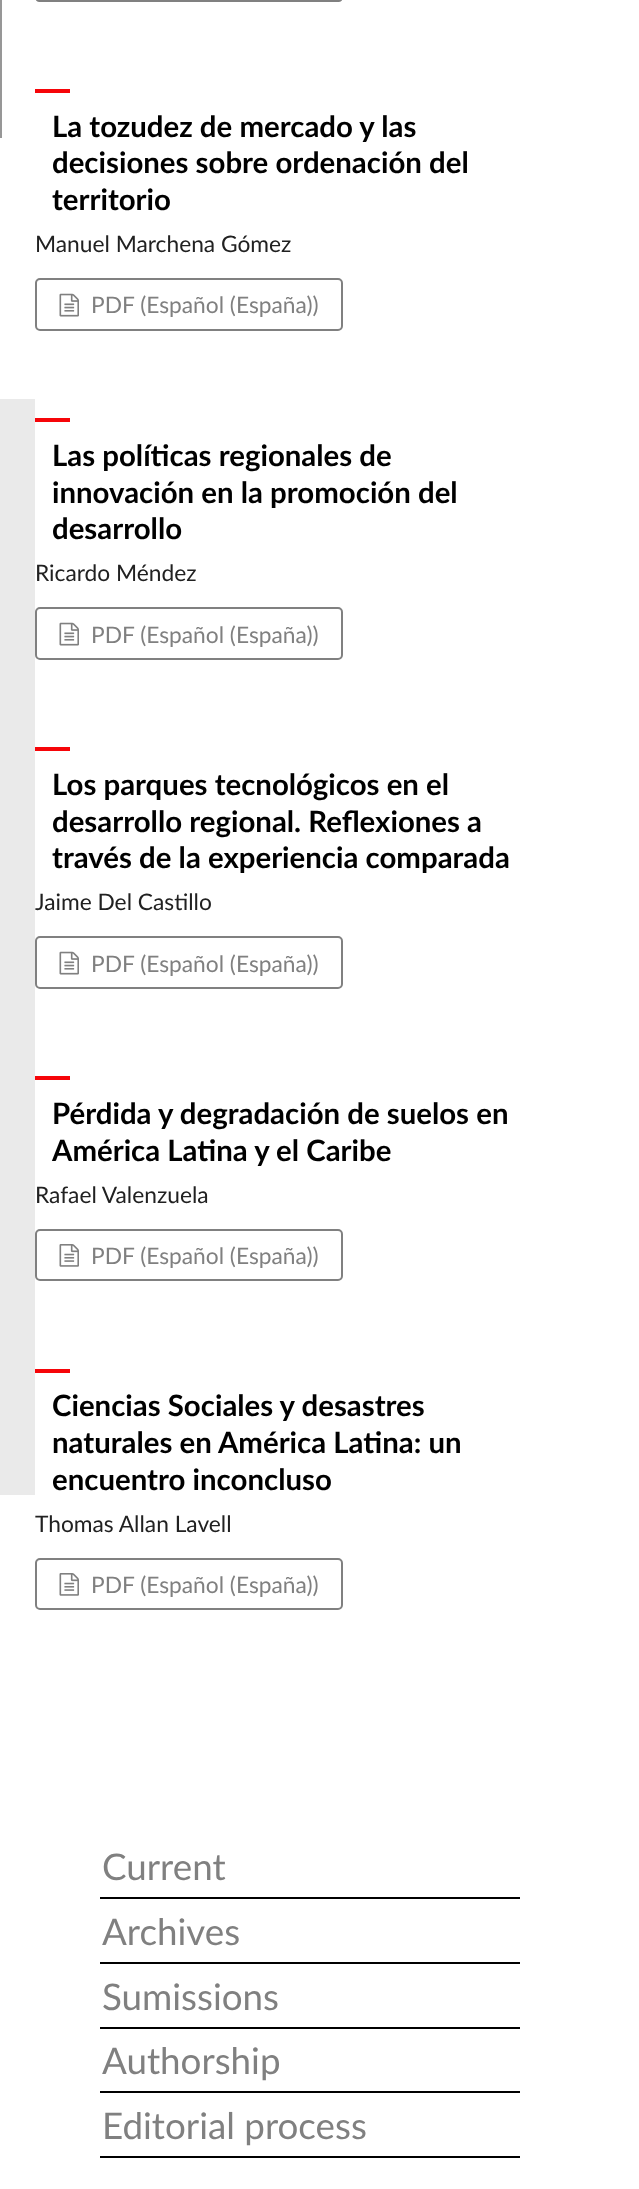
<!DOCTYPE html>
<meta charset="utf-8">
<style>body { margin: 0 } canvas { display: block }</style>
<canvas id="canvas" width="639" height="2189"></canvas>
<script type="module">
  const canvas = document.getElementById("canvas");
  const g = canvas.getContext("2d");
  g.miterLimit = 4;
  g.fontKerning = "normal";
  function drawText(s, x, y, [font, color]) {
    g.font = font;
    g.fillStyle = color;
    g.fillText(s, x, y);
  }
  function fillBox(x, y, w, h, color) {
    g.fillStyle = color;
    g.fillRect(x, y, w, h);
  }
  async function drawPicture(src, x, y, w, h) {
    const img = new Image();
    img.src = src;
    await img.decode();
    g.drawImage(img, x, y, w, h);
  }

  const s1 = ["bold 29.4px Lato", "#000000"];
  const s2 = ["22.75px Lato", "#212121"];
  const s3 = ["22.75px Lato", "#808080"];
  const s4 = ["36.75px Lato", "#808080"];

  fillBox(0, 0, 639, 2189, "#FFFFFF");
  fillBox(0, 399, 35, 1096, "#EAEAEA");
  fillBox(0, 0, 2, 138, "#979797");
  g.beginPath();
  g.roundRect(36, -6, 306, 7, 4);
  g.strokeStyle = "#808080";
  g.lineWidth = 2;
  g.stroke();
  fillBox(35, 89, 35, 4, "#F60509");
  drawText("La tozudez de mercado y las", 52, 137, s1);
  drawText("decisiones sobre ordenación del", 52, 173, s1);
  drawText("territorio", 52, 210, s1);
  drawText("Manuel Marchena Gómez", 35, 252, s2);
  g.beginPath();
  g.roundRect(36, 279, 306, 51, 4);
  g.stroke();
  await drawPicture("pic1.png", 59, 293, 20, 24);
  drawText("PDF (Español (España))", 91, 313, s3);
  fillBox(35, 418, 35, 4, "#F60509");
  drawText("Las políticas regionales de", 52, 466, s1);
  drawText("innovación en la promoción del", 52, 503, s1);
  drawText("desarrollo", 52, 539, s1);
  drawText("Ricardo Méndez", 35, 581, s2);
  g.beginPath();
  g.roundRect(36, 608, 306, 51, 4);
  g.stroke();
  await drawPicture("pic1.png", 59, 622, 20, 24);
  drawText("PDF (Español (España))", 91, 643, s3);
  fillBox(35, 747, 35, 4, "#F60509");
  drawText("Los parques tecnológicos en el", 52, 795, s1);
  drawText("desarrollo regional. Reflexiones a", 52, 832, s1);
  drawText("través de la experiencia comparada", 52, 868, s1);
  drawText("Jaime Del Castillo", 35, 910, s2);
  g.beginPath();
  g.roundRect(36, 937, 306, 51, 4);
  g.stroke();
  await drawPicture("pic1.png", 59, 951, 20, 24);
  drawText("PDF (Español (España))", 91, 972, s3);
  fillBox(35, 1076, 35, 4, "#F60509");
  drawText("Pérdida y degradación de suelos en", 52, 1124, s1);
  drawText("América Latina y el Caribe", 52, 1161, s1);
  drawText("Rafael Valenzuela", 35, 1203, s2);
  g.beginPath();
  g.roundRect(36, 1230, 306, 50, 4);
  g.stroke();
  await drawPicture("pic2.png", 59, 1244, 20, 23);
  drawText("PDF (Español (España))", 91, 1264, s3);
  fillBox(35, 1369, 35, 4, "#F60509");
  drawText("Ciencias Sociales y desastres", 52, 1416, s1);
  drawText("naturales en América Latina: un", 52, 1453, s1);
  drawText("encuentro inconcluso", 52, 1490, s1);
  drawText("Thomas Allan Lavell", 35, 1532, s2);
  g.beginPath();
  g.roundRect(36, 1559, 306, 50, 4);
  g.stroke();
  await drawPicture("pic2.png", 59, 1573, 20, 23);
  drawText("PDF (Español (España))", 91, 1593, s3);
  fillBox(100, 1897, 420, 2, "#000000");
  drawText("Current", 102, 1880, s4);
  fillBox(100, 1962, 420, 2, "#000000");
  drawText("Archives", 102, 1945, s4);
  fillBox(100, 2027, 420, 2, "#000000");
  drawText("Sumissions", 102, 2010, s4);
  fillBox(100, 2091, 420, 2, "#000000");
  drawText("Authorship", 102, 2074, s4);
  fillBox(100, 2156, 420, 2, "#000000");
  drawText("Editorial process", 102, 2139, s4);
</script>
